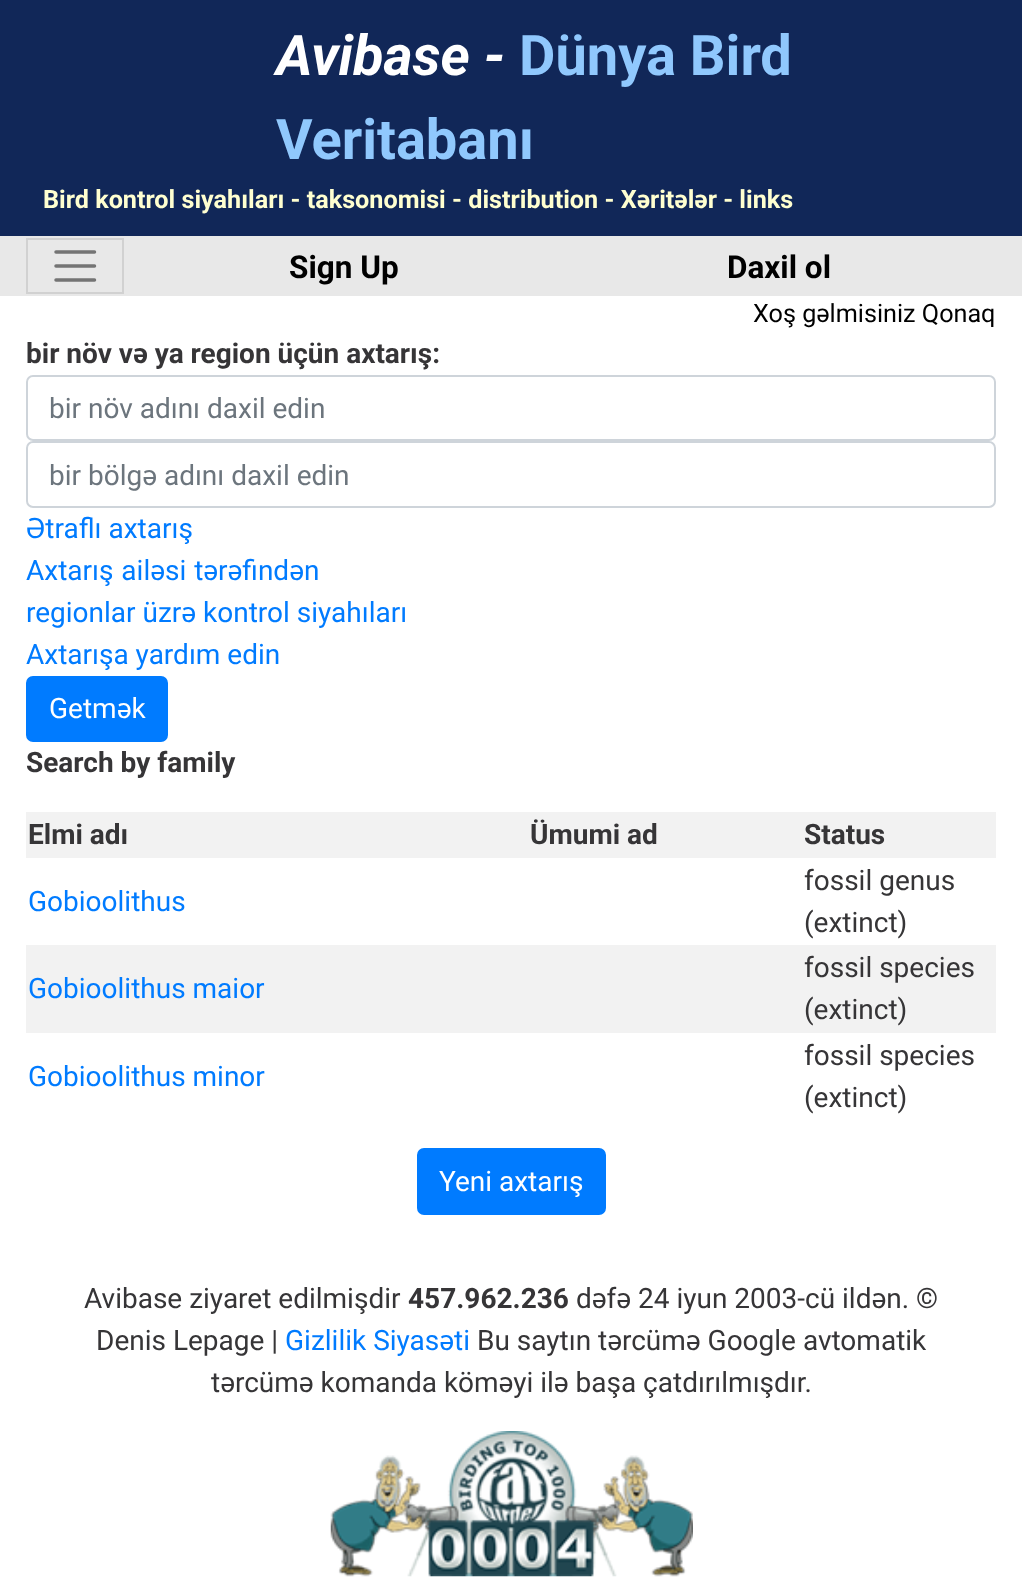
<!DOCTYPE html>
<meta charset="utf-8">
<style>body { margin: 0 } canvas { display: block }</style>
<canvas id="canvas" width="1022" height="1595"></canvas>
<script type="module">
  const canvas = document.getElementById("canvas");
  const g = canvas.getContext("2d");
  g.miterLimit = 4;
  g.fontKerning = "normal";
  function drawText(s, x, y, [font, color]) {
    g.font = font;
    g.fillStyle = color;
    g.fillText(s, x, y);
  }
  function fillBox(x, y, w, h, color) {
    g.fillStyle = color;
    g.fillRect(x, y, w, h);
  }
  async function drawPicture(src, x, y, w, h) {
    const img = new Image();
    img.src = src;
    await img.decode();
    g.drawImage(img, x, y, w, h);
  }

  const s1 = ["italic bold 56px Roboto", "#FFFFFF"];
  const s2 = ["bold 56px Roboto", "#90C8FD"];
  const s3 = ["bold 25.2px Roboto", "#FFFFD0"];
  const s4 = ["bold 31.5px Roboto", "#000000"];
  const s5 = ["25.2px Roboto", "#000000"];
  const s6 = ["bold 28px Roboto", "#363537"];
  const s7 = ["28px Roboto", "#6C757D"];
  const s8 = ["28px Roboto", "#007BFF"];
  const s9 = ["28px Roboto", "#FFFFFF"];
  const s10 = ["28px Roboto", "#363537"];

  fillBox(0, 0, 1022, 1595, "#FFFFFF");
  fillBox(0, 0, 1022, 236, "#112758");
  drawText("Avibase -", 276, 75, s1);
  drawText("Dünya Bird", 519, 75, s2);
  drawText("Veritabanı", 276, 159, s2);
  drawText("Bird kontrol siyahıları - taksonomisi - distribution - Xəritələr - links", 43, 208, s3);
  fillBox(0, 236, 1022, 60, "#E8E8E8");
  g.strokeStyle = "#D1D1D1";
  g.lineWidth = 2;
  g.strokeRect(27, 239, 96, 54);
  g.beginPath();
  g.moveTo(56, 252);
  g.lineTo(94.5, 252);
  g.moveTo(56, 266);
  g.lineTo(94.5, 266);
  g.moveTo(56, 280);
  g.lineTo(94.5, 280);
  g.strokeStyle = "#747474";
  g.lineWidth = 3.5;
  g.lineCap = "round";
  g.stroke();
  drawText("Sign Up", 289, 278, s4);
  drawText("Daxil ol", 727, 278, s4);
  drawText("Xoş gəlmisiniz Qonaq", 753, 322, s5);
  drawText("bir növ və ya region üçün axtarış:", 26, 363, s6);
  g.beginPath();
  g.roundRect(27, 376, 968, 64, 6);
  g.strokeStyle = "#CED4DA";
  g.lineWidth = 2;
  g.stroke();
  drawText("bir növ adını daxil edin", 49, 418, s7);
  g.beginPath();
  g.roundRect(27, 442, 968, 65, 6);
  g.stroke();
  drawText("bir bölgə adını daxil edin", 49, 485, s7);
  drawText("Ətraflı axtarış", 26, 538, s8);
  g.wordSpacing = "1px";
  drawText("Axtarış ailəsi tərəfindən", 26, 580, s8);
  g.wordSpacing = "0px";
  drawText("regionlar üzrə kontrol siyahıları", 26, 622, s8);
  drawText("Axtarışa yardım edin", 26, 664, s8);
  g.beginPath();
  g.roundRect(27, 677, 140, 64, 6);
  g.fill();
  g.strokeStyle = "#007BFF";
  g.stroke();
  drawText("Getmək", 49, 718, s9);
  drawText("Search by family", 26, 772, s6);
  fillBox(26, 812, 970, 46, "#F2F2F2");
  drawText("Elmi adı", 28, 844, s6);
  drawText("Ümumi ad", 530, 844, s6);
  drawText("Status", 804, 844, s6);
  drawText("Gobioolithus", 28, 911, s8);
  drawText("fossil genus", 804, 890, s10);
  drawText("(extinct)", 804, 932, s10);
  fillBox(26, 945, 970, 88, "#F2F2F2");
  drawText("Gobioolithus maior", 28, 998, s8);
  drawText("fossil species", 804, 977, s10);
  drawText("(extinct)", 804, 1019, s10);
  drawText("Gobioolithus minor", 28, 1086, s8);
  drawText("fossil species", 804, 1065, s10);
  drawText("(extinct)", 804, 1107, s10);
  g.fillStyle = "#007BFF";
  g.beginPath();
  g.roundRect(418, 1149, 187, 65, 6);
  g.fill();
  g.stroke();
  drawText("Yeni axtarış", 439, 1191, s9);
  drawText("Avibase ziyaret edilmişdir", 84, 1308, s10);
  drawText("457.962.236", 408, 1308, s6);
  drawText("dəfə 24 iyun 2003-cü ildən. ©", 576, 1308, s10);
  drawText("Denis Lepage |", 96, 1350, s10);
  drawText("Gizlilik Siyasəti", 285, 1350, s8);
  drawText("Bu saytın tərcümə Google avtomatik", 477, 1350, s10);
  drawText("tərcümə komanda köməyi ilə başa çatdırılmışdır.", 211, 1392, s10);
  await drawPicture("pic1.png", 330, 1431, 363, 146);
</script>
